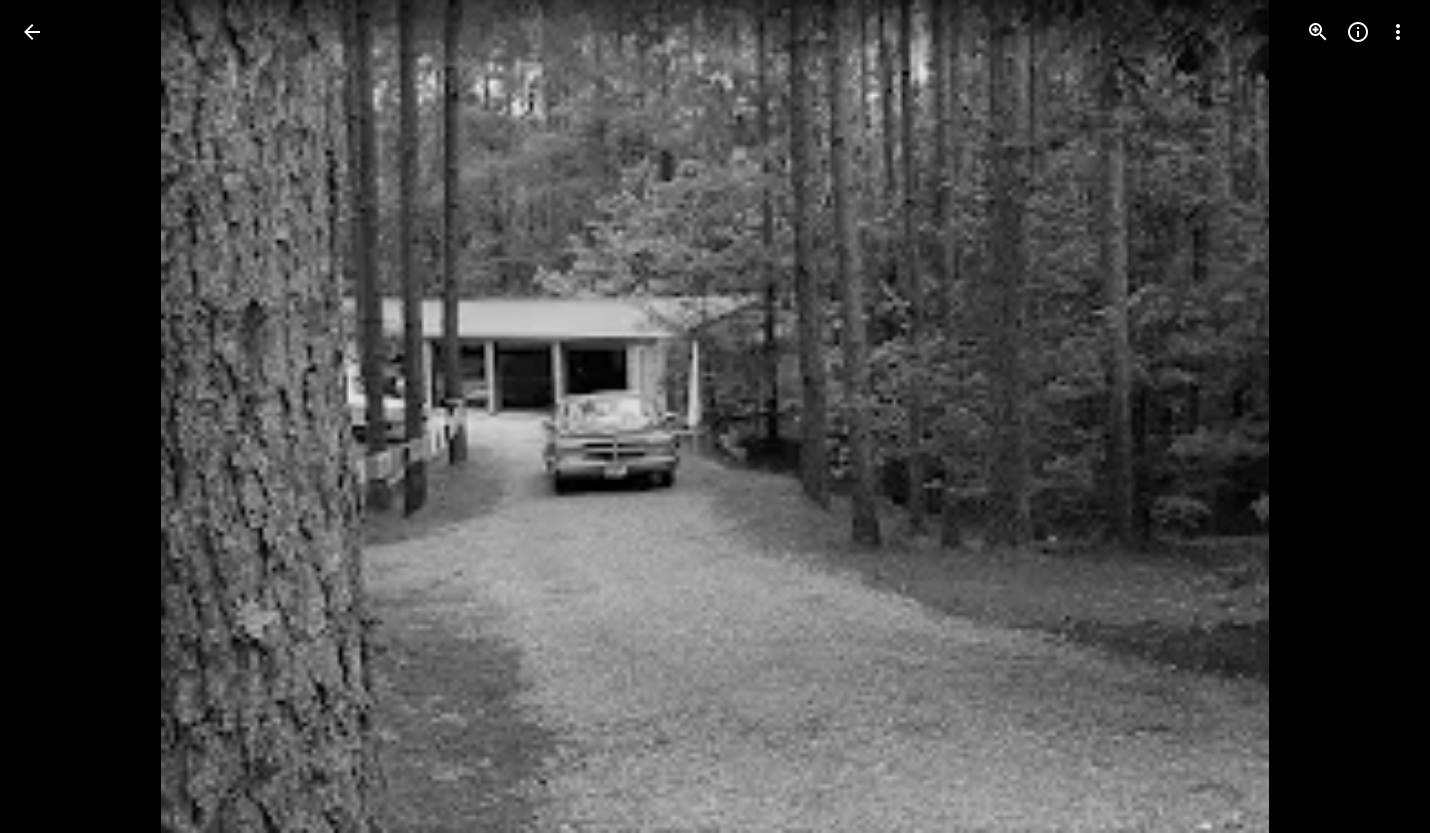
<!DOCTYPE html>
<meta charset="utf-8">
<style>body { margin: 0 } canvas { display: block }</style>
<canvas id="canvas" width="1430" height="833"></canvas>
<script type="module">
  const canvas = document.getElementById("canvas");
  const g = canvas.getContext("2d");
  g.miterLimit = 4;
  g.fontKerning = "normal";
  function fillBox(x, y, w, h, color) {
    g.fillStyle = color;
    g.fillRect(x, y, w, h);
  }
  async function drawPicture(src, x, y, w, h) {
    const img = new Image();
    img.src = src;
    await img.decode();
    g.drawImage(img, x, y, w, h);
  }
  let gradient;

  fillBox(0, 0, 1430, 833, "#000000");
  await drawPicture("pic5.png", 161, 0, 1108, 833);
  gradient = g.createLinearGradient(715, 0, 715, 64);
  gradient.addColorStop(0, "rgba(0, 0, 0, 0.6)");
  gradient.addColorStop(1, "rgba(0, 0, 0, 0)");
  g.fillStyle = gradient;
  g.fillRect(161, 0, 1108, 62);
  await drawPicture("pic1.png", 24, 24, 16, 16);
  await drawPicture("pic2.png", 1309, 23, 18, 18);
  await drawPicture("pic3.png", 1348, 22, 20, 20);
  await drawPicture("pic4.png", 1396, 24, 4, 16);
</script>
